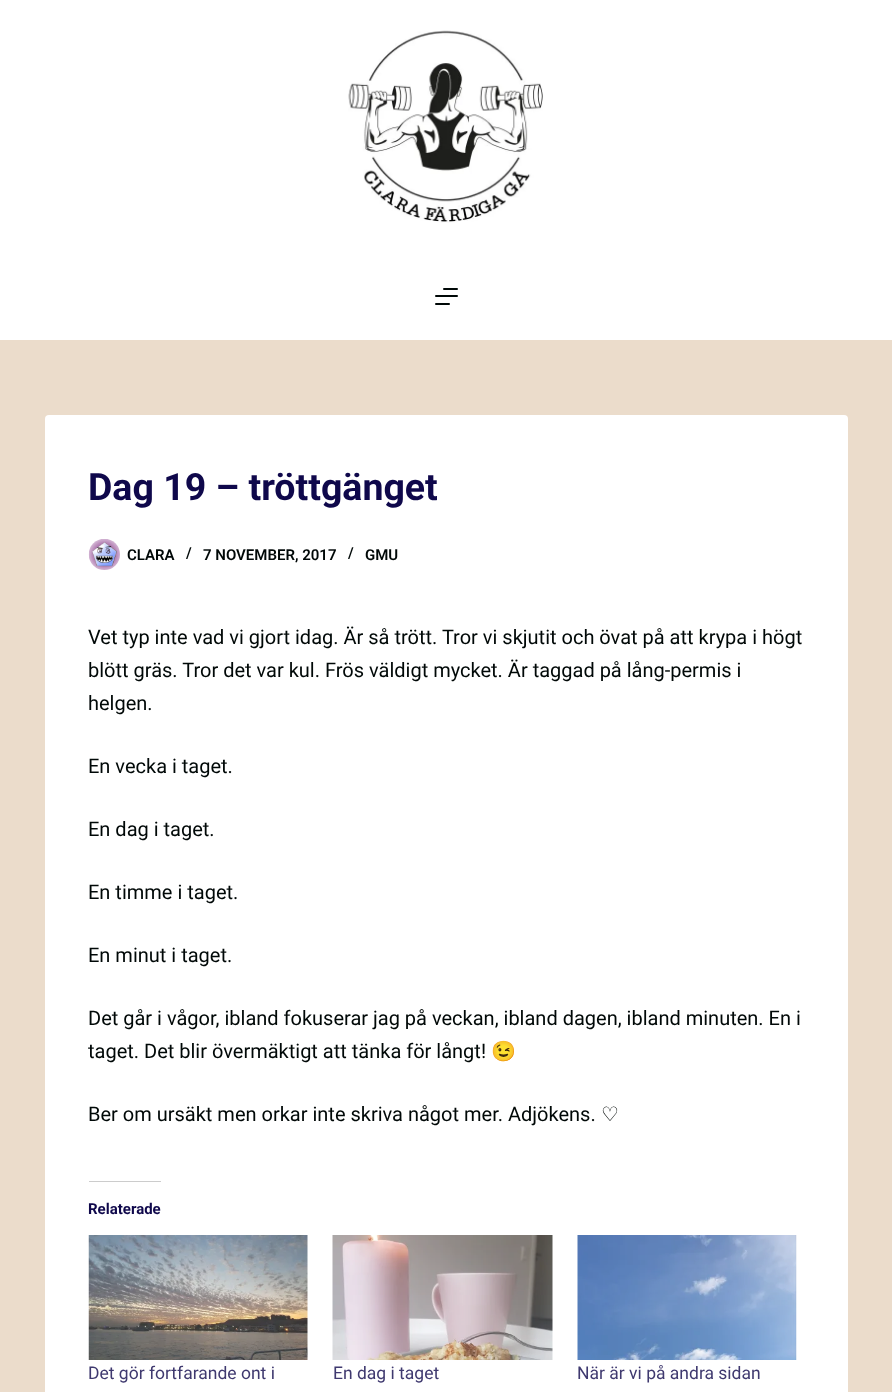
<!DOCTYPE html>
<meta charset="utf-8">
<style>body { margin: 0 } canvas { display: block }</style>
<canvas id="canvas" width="892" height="1392"></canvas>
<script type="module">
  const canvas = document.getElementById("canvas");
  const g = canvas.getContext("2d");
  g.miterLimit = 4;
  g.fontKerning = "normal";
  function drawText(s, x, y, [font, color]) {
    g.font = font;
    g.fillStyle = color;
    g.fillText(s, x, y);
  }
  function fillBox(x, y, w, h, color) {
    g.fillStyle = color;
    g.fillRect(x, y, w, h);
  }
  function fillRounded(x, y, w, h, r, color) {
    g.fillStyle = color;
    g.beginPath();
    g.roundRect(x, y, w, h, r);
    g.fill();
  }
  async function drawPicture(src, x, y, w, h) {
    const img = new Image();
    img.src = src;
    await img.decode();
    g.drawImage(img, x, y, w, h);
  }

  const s1 = ["bold 37.5px Roboto", "#0F084B"];
  const s2 = ["600 15px Roboto", "#000807"];
  const s3 = ["20px Roboto", "#000807"];
  const s4 = ["20px Noto Color Emoji", "#000807"];
  const s5 = ["20px DejaVu Sans", "#000807"];
  const s6 = ["bold 15px Roboto", "#0F084B"];
  const s7 = ["17.5px Roboto", "#3F396F"];

  fillBox(0, 0, 892, 1392, "#EBDCCB");
  fillBox(0, 0, 892, 340, "#FFFFFF");
  fillRounded(443, 288, 15, 2, 1, "#000807");
  fillRounded(435, 295, 23, 2, 1, "#000807");
  fillRounded(435, 303, 15, 2, 1, "#000807");
  await drawPicture("pic1.png", 348, 30, 195, 193);
  fillRounded(45, 415, 803, 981, 4, "#FFFFFF");
  drawText("Dag 19 – tröttgänget", 88, 500, s1);
  await drawPicture("pic2.png", 88, 539, 32, 31);
  drawText("CLARA", 127, 560, s2);
  drawText("/", 186, 558, s2);
  drawText("7 NOVEMBER, 2017", 203, 560, s2);
  drawText("/", 348, 558, s2);
  drawText("GMU", 365, 560, s2);
  drawText("Vet typ inte vad vi gjort idag. Är så trött. Tror vi skjutit och övat på att krypa i högt", 88, 644, s3);
  drawText("blött gräs. Tror det var kul. Frös väldigt mycket. Är taggad på lång-permis i", 88, 677, s3);
  drawText("helgen.", 88, 710, s3);
  drawText("En vecka i taget.", 88, 773, s3);
  drawText("En dag i taget.", 88, 836, s3);
  drawText("En timme i taget.", 88, 899, s3);
  drawText("En minut i taget.", 88, 962, s3);
  drawText("Det går i vågor, ibland fokuserar jag på veckan, ibland dagen, ibland minuten. En i", 88, 1025, s3);
  drawText("taget. Det blir övermäktigt att tänka för långt!", 88, 1058, s3);
  drawText("😉", 491, 1058, s4);
  drawText("Ber om ursäkt men orkar inte skriva något mer. Adjökens.", 88, 1121, s3);
  drawText("♡", 601, 1121, s5);
  fillBox(89, 1181, 72, 1, "#CCCCCC");
  drawText("Relaterade", 88, 1214, s6);
  await drawPicture("pic3.png", 88, 1235, 220, 125);
  drawText("Det gör fortfarande ont i", 88, 1379, s7);
  await drawPicture("pic4.png", 332, 1235, 221, 125);
  drawText("En dag i taget", 333, 1379, s7);
  await drawPicture("pic5.png", 577, 1235, 220, 125);
  drawText("När är vi på andra sidan", 577, 1379, s7);
</script>
